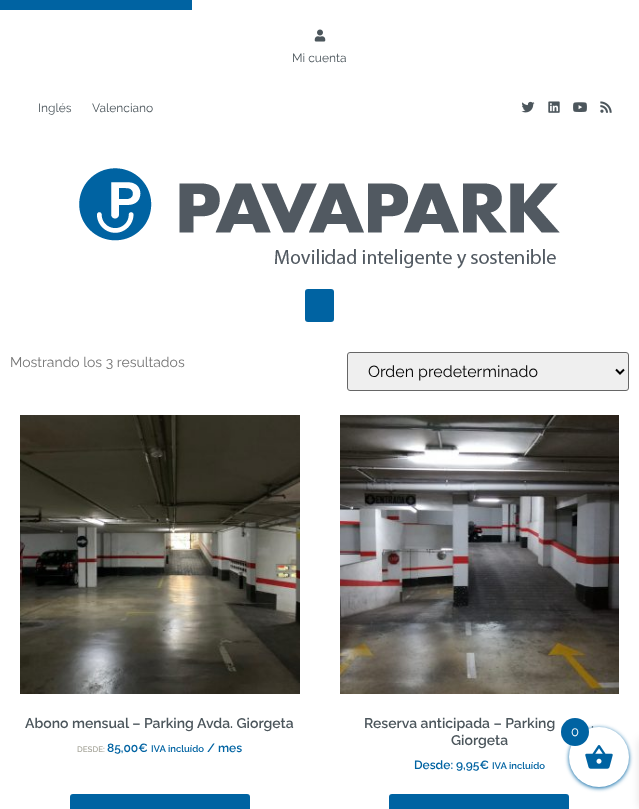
<!DOCTYPE html>
<meta charset="utf-8">
<style>body { margin: 0 } canvas { display: block }</style>
<canvas id="canvas" width="639" height="809"></canvas>
<script type="module">
  const canvas = document.getElementById("canvas");
  const g = canvas.getContext("2d");
  g.miterLimit = 4;
  g.fontKerning = "normal";
  function drawText(s, x, y, [font, color]) {
    g.font = font;
    g.fillStyle = color;
    g.fillText(s, x, y);
  }
  function fillBox(x, y, w, h, color) {
    g.fillStyle = color;
    g.fillRect(x, y, w, h);
  }
  function fillRounded(x, y, w, h, r, color) {
    g.fillStyle = color;
    g.beginPath();
    g.roundRect(x, y, w, h, r);
    g.fill();
  }
  async function drawPicture(src, x, y, w, h) {
    const img = new Image();
    img.src = src;
    await img.decode();
    g.drawImage(img, x, y, w, h);
  }

  const s1 = ["12px Raleway", "#4C565C"];
  const s2 = ["14px Raleway", "#757575"];
  const s3 = ["16px Raleway", "#000000"];
  const s4 = ["600 14px Raleway", "#4C565C"];
  const s5 = ["600 8px Raleway", "#ADACA2"];
  const s6 = ["600 12px Raleway", "#0063A2"];
  const s7 = ["600 9.5px Raleway", "#0063A2"];
  const s8 = ["13px Raleway", "#FFFFFF"];

  fillBox(0, 0, 639, 809, "#FFFFFF");
  fillBox(0, 0, 192, 10, "#0063A2");
  await drawPicture("pic1.png", 314, 29, 12, 13);
  drawText("Mi cuenta", 292, 62, s1);
  drawText("Inglés", 38, 112, s1);
  drawText("Valenciano", 92, 112, s1);
  await drawPicture("pic2.png", 521, 101, 14, 12);
  await drawPicture("pic3.png", 548, 101, 12, 12);
  await drawPicture("pic4.png", 573, 102, 14, 10);
  await drawPicture("pic5.png", 600, 101, 12, 12);
  await drawPicture("pic6.png", 79, 168, 481, 101);
  fillRounded(305, 289, 29, 33, 3, "#0063A2");
  drawText("Mostrando los 3 resultados", 10, 367, s2);
  g.fillStyle = "#EFEFEF";
  g.beginPath();
  g.roundRect(347.5, 352.5, 281, 38, 2.5);
  g.fill();
  g.strokeStyle = "#666666";
  g.stroke();
  g.beginPath();
  g.moveTo(616, 369.5);
  g.lineTo(620, 373.5);
  g.lineTo(624, 369.5);
  g.strokeStyle = "#000000";
  g.lineWidth = 2;
  g.stroke();
  drawText("Orden predeterminado", 368, 377, s3);
  await drawPicture("pic7.png", 20, 415, 280, 279);
  drawText("Abono mensual – Parking Avda. Giorgeta", 25, 728, s4);
  drawText("DESDE:", 77, 752, s5);
  drawText("85,00€", 107, 752, s6);
  drawText("IVA incluído", 151, 752, s7);
  drawText("/ mes", 207, 752, s6);
  fillRounded(70, 794, 180, 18, 3, "#0063A2");
  await drawPicture("pic8.png", 340, 415, 279, 279);
  drawText("Reserva anticipada – Parking", 364, 728, s4);
  drawText(".", 591, 728, s4);
  drawText("Giorgeta", 451, 745, s4);
  drawText("Desde: 9,95€", 414, 769, s6);
  drawText("IVA incluído", 492, 769, s7);
  fillRounded(389, 794, 180, 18, 3, "#0063A2");
  g.filter = "blur(2px)";
  g.beginPath();
  g.roundRect(569, 728, 60, 60, 30);
  g.fill();
  g.filter = "none";
  g.fillStyle = "rgba(0, 0, 0, 0.1)";
  g.filter = "blur(5px)";
  g.beginPath();
  g.rect(639, 739, 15, 69);
  g.fill();
  g.filter = "none";
  g.fillStyle = "#FFFFFF";
  g.beginPath();
  g.arc(599, 757, 30, 0, Math.PI * 2);
  g.fill();
  await drawPicture("pic9.png", 585, 745, 28, 24);
  g.fillStyle = "#0063A2";
  g.beginPath();
  g.arc(575, 732, 14, 0, Math.PI * 2);
  g.fill();
  drawText("0", 571, 736, s8);
</script>
